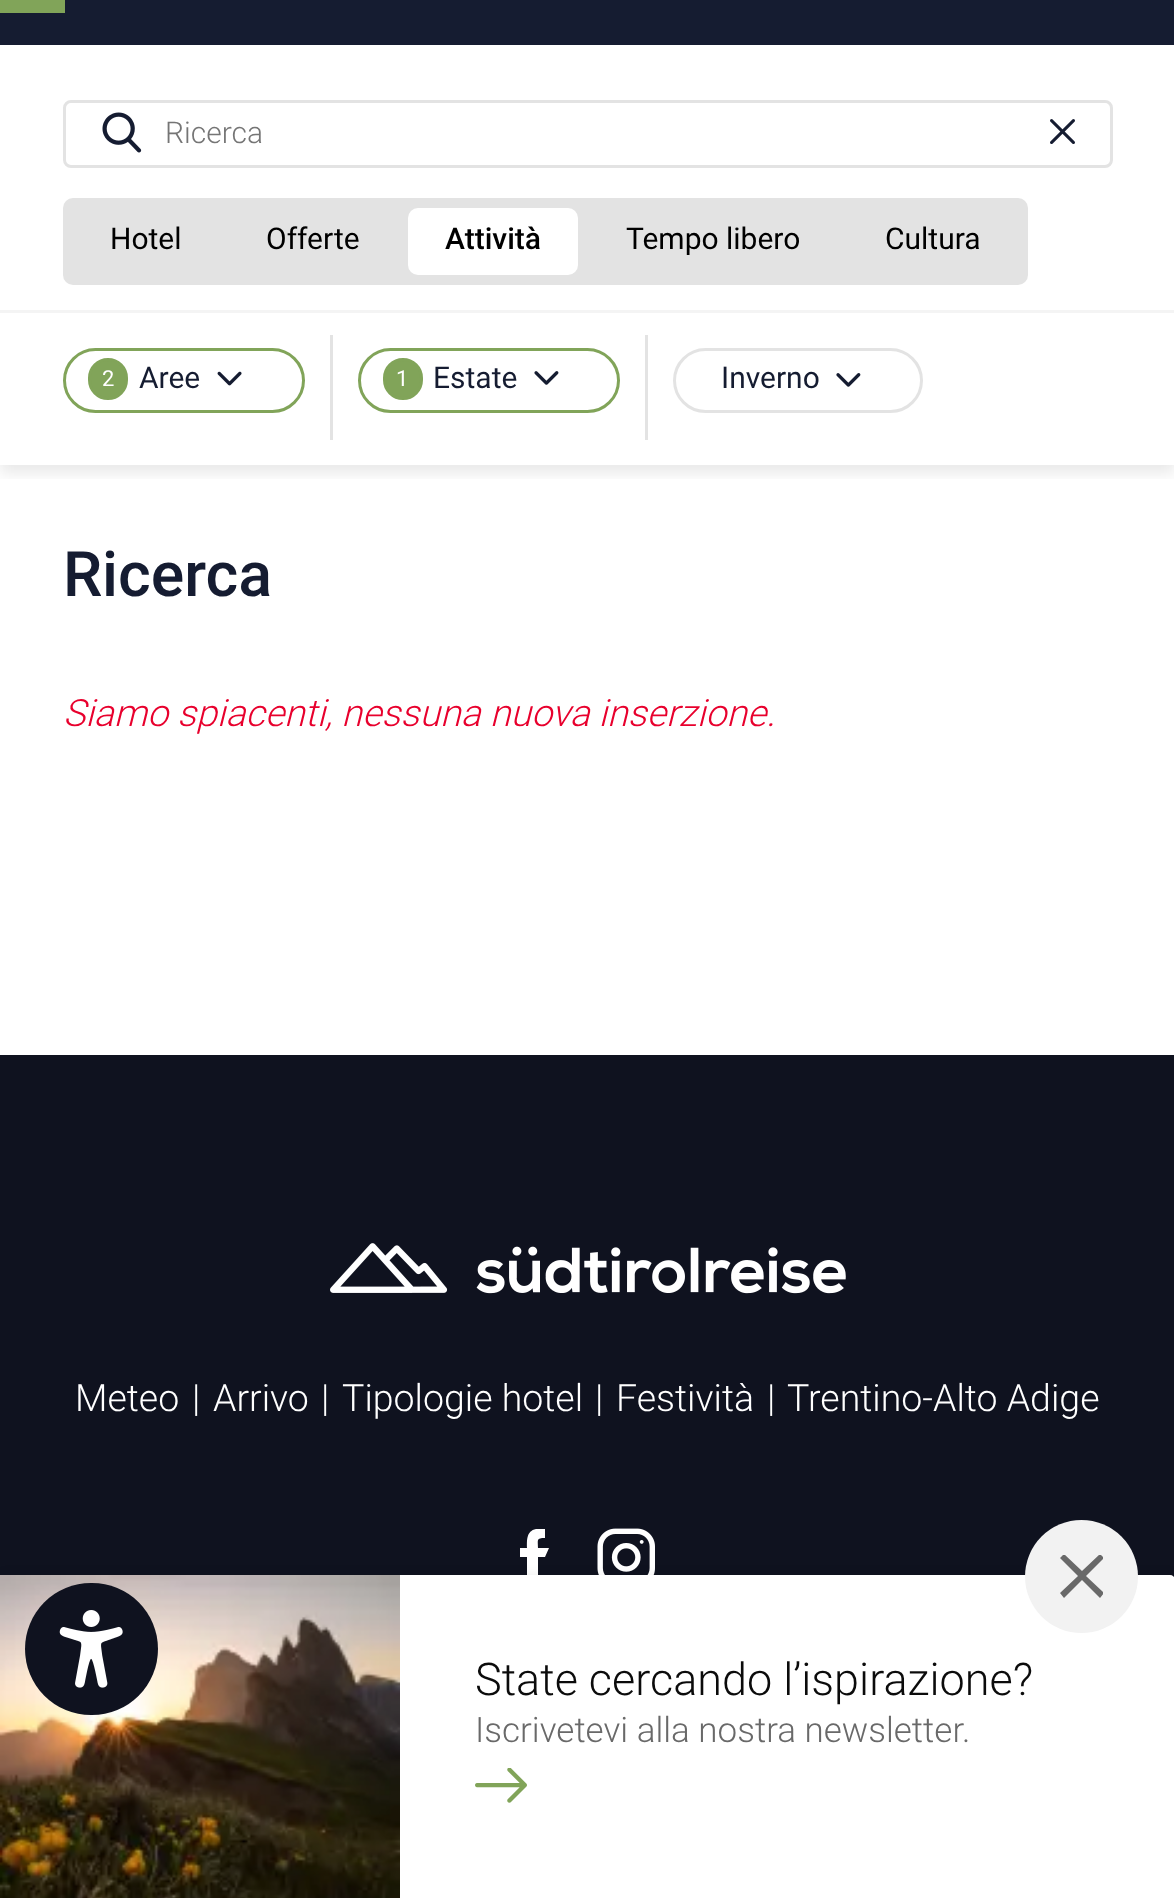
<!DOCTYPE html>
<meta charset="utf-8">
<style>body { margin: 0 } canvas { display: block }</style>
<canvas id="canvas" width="1174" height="1898"></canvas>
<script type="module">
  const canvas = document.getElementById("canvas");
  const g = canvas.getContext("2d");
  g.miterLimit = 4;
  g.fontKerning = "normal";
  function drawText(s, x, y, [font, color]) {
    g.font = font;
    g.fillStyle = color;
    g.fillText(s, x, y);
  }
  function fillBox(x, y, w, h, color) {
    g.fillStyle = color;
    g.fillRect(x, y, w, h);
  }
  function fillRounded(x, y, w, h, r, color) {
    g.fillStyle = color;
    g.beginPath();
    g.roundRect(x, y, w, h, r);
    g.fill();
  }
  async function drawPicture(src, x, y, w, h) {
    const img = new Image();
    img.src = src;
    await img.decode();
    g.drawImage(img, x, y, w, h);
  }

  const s1 = ["300 30px Roboto", "#757575"];
  const s2 = ["30px Roboto", "#000000"];
  const s3 = ["500 30px Roboto", "#000000"];
  const s4 = ["22px Roboto", "#FFFFFF"];
  const s5 = ["30px Roboto", "#151C31"];
  const s6 = ["500 62.5px Roboto", "#151C31"];
  const s7 = ["italic 300 37.5px Roboto", "#E8002D"];
  const s8 = ["300 37.5px Roboto", "#FFFFFF"];
  const s9 = ["300 45px Roboto", "#0B0B0B"];
  const s10 = ["300 35px Roboto", "#696969"];

  fillBox(0, 0, 1174, 1898, "#FFFFFF");
  fillBox(0, 0, 1174, 45, "#151C31");
  fillBox(0, 0, 65, 13, "#81A459");
  g.save();
  g.beginPath();
  g.rect(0, 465, 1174, 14);
  g.clip();
  g.fillStyle = "rgba(0, 0, 0, 0.09)";
  g.filter = "blur(7.5px)";
  g.beginPath();
  g.rect(0, 53, 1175, 420);
  g.fill();
  g.filter = "none";
  g.restore();
  fillBox(0, 310, 1174, 3, "#F4F4F4");
  g.beginPath();
  g.roundRect(64.5, 101.5, 1047, 65, 6.5);
  g.strokeStyle = "#E3E3E3";
  g.lineWidth = 3;
  g.stroke();
  await drawPicture("pic1.png", 102, 112, 40, 41);
  drawText("Ricerca", 165, 143, s1);
  await drawPicture("pic2.png", 1050, 119, 25, 25);
  fillRounded(63, 198, 965, 87, 10, "#E3E3E3");
  drawText("Hotel", 110, 249, s2);
  drawText("Offerte", 266, 249, s2);
  fillRounded(408, 208, 170, 67, 10, "#FFFFFF");
  drawText("Attività", 445, 249, s3);
  drawText("Tempo libero", 626, 249, s2);
  drawText("Cultura", 885, 249, s2);
  fillBox(330, 335, 3, 105, "#E3E3E3");
  g.beginPath();
  g.roundRect(64.5, 349.5, 239, 62, 31);
  g.strokeStyle = "#81A459";
  g.stroke();
  g.fillStyle = "#81A459";
  g.beginPath();
  g.roundRect(89.5, 359.5, 37, 39, 18.5);
  g.fill();
  g.stroke();
  drawText("2", 102, 386, s4);
  drawText("Aree", 139, 388, s5);
  await drawPicture("pic3.png", 217, 371, 25, 15);
  fillBox(645, 335, 3, 105, "#E3E3E3");
  g.beginPath();
  g.roundRect(359.5, 349.5, 259, 62, 31);
  g.stroke();
  g.fillStyle = "#81A459";
  g.beginPath();
  g.roundRect(384.5, 359.5, 37, 39, 18.5);
  g.fill();
  g.stroke();
  drawText("1", 396, 386, s4);
  drawText("Estate", 433, 388, s5);
  await drawPicture("pic4.png", 534, 371, 25, 14);
  g.beginPath();
  g.roundRect(674.5, 349.5, 247, 62, 31);
  g.strokeStyle = "#E3E3E3";
  g.stroke();
  drawText("Inverno", 721, 388, s5);
  await drawPicture("pic5.png", 836, 373, 25, 14);
  drawText("Ricerca", 63, 596, s6);
  drawText("Siamo spiacenti, nessuna nuova inserzione.", 63, 726, s7);
  fillBox(0, 1055, 1174, 522, "#0F121F");
  await drawPicture("pic6.png", 330, 1243, 516, 51);
  drawText("Meteo", 75, 1411, s8);
  drawText("|", 192, 1411, s8);
  drawText("Arrivo", 213, 1411, s8);
  drawText("|", 321, 1411, s8);
  drawText("Tipologie hotel", 342, 1411, s8);
  drawText("|", 595, 1411, s8);
  drawText("Festività", 616, 1411, s8);
  drawText("|", 767, 1411, s8);
  drawText("Trentino-Alto Adige", 787, 1411, s8);
  g.beginPath();
  g.moveTo(538, 1548);
  g.bezierCurveTo(538, 1540, 536, 1538, 545, 1538);
  g.lineTo(545, 1529);
  g.lineTo(536, 1529);
  g.bezierCurveTo(526, 1531, 527, 1541, 527, 1548);
  g.lineTo(520, 1548);
  g.lineTo(520, 1557);
  g.lineTo(527, 1557);
  g.lineTo(527, 1586);
  g.lineTo(538, 1586);
  g.lineTo(538, 1557);
  g.lineTo(545, 1557);
  g.lineTo(549, 1548);
  g.closePath();
  g.fill();
  await drawPicture("pic7.png", 597, 1528, 58, 47);
  g.fillStyle = "rgba(0, 0, 0, 0.15)";
  g.filter = "blur(7.5px)";
  g.beginPath();
  g.roundRect(0, 1580, 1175, 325, 5);
  g.fill();
  g.filter = "none";
  fillRounded(0, 1575, 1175, 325, 5, "#FFFFFF");
  await drawPicture("pic9.png", 0, 1575, 400, 323);
  fillRounded(25, 1583, 133, 132, 66, "#0F121F");
  await drawPicture("pic8.png", 59, 1610, 64, 78);
  drawText("State cercando l’ispirazione?", 475, 1695, s9);
  drawText("Iscrivetevi alla nostra newsletter.", 475, 1742, s10);
  await drawPicture("pic10.png", 475, 1768, 52, 35);
  g.fillStyle = "#F2F2F2";
  g.beginPath();
  g.arc(1081.5, 1576.5, 56.5, 0, Math.PI * 2);
  g.fill();
  g.save();
  g.beginPath();
  g.rect(1060, 1555, 43, 43);
  g.clip();
  g.fillStyle = "#696969";
  g.beginPath();
  g.moveTo(1104, 1558);
  g.lineTo(1100, 1554);
  g.lineTo(1082, 1571);
  g.lineTo(1064, 1554);
  g.lineTo(1060, 1558);
  g.lineTo(1078, 1576);
  g.lineTo(1060, 1593);
  g.lineTo(1064, 1598);
  g.lineTo(1082, 1580);
  g.lineTo(1100, 1598);
  g.lineTo(1104, 1593);
  g.lineTo(1086, 1576);
  g.closePath();
  g.fill();
  g.restore();
</script>
